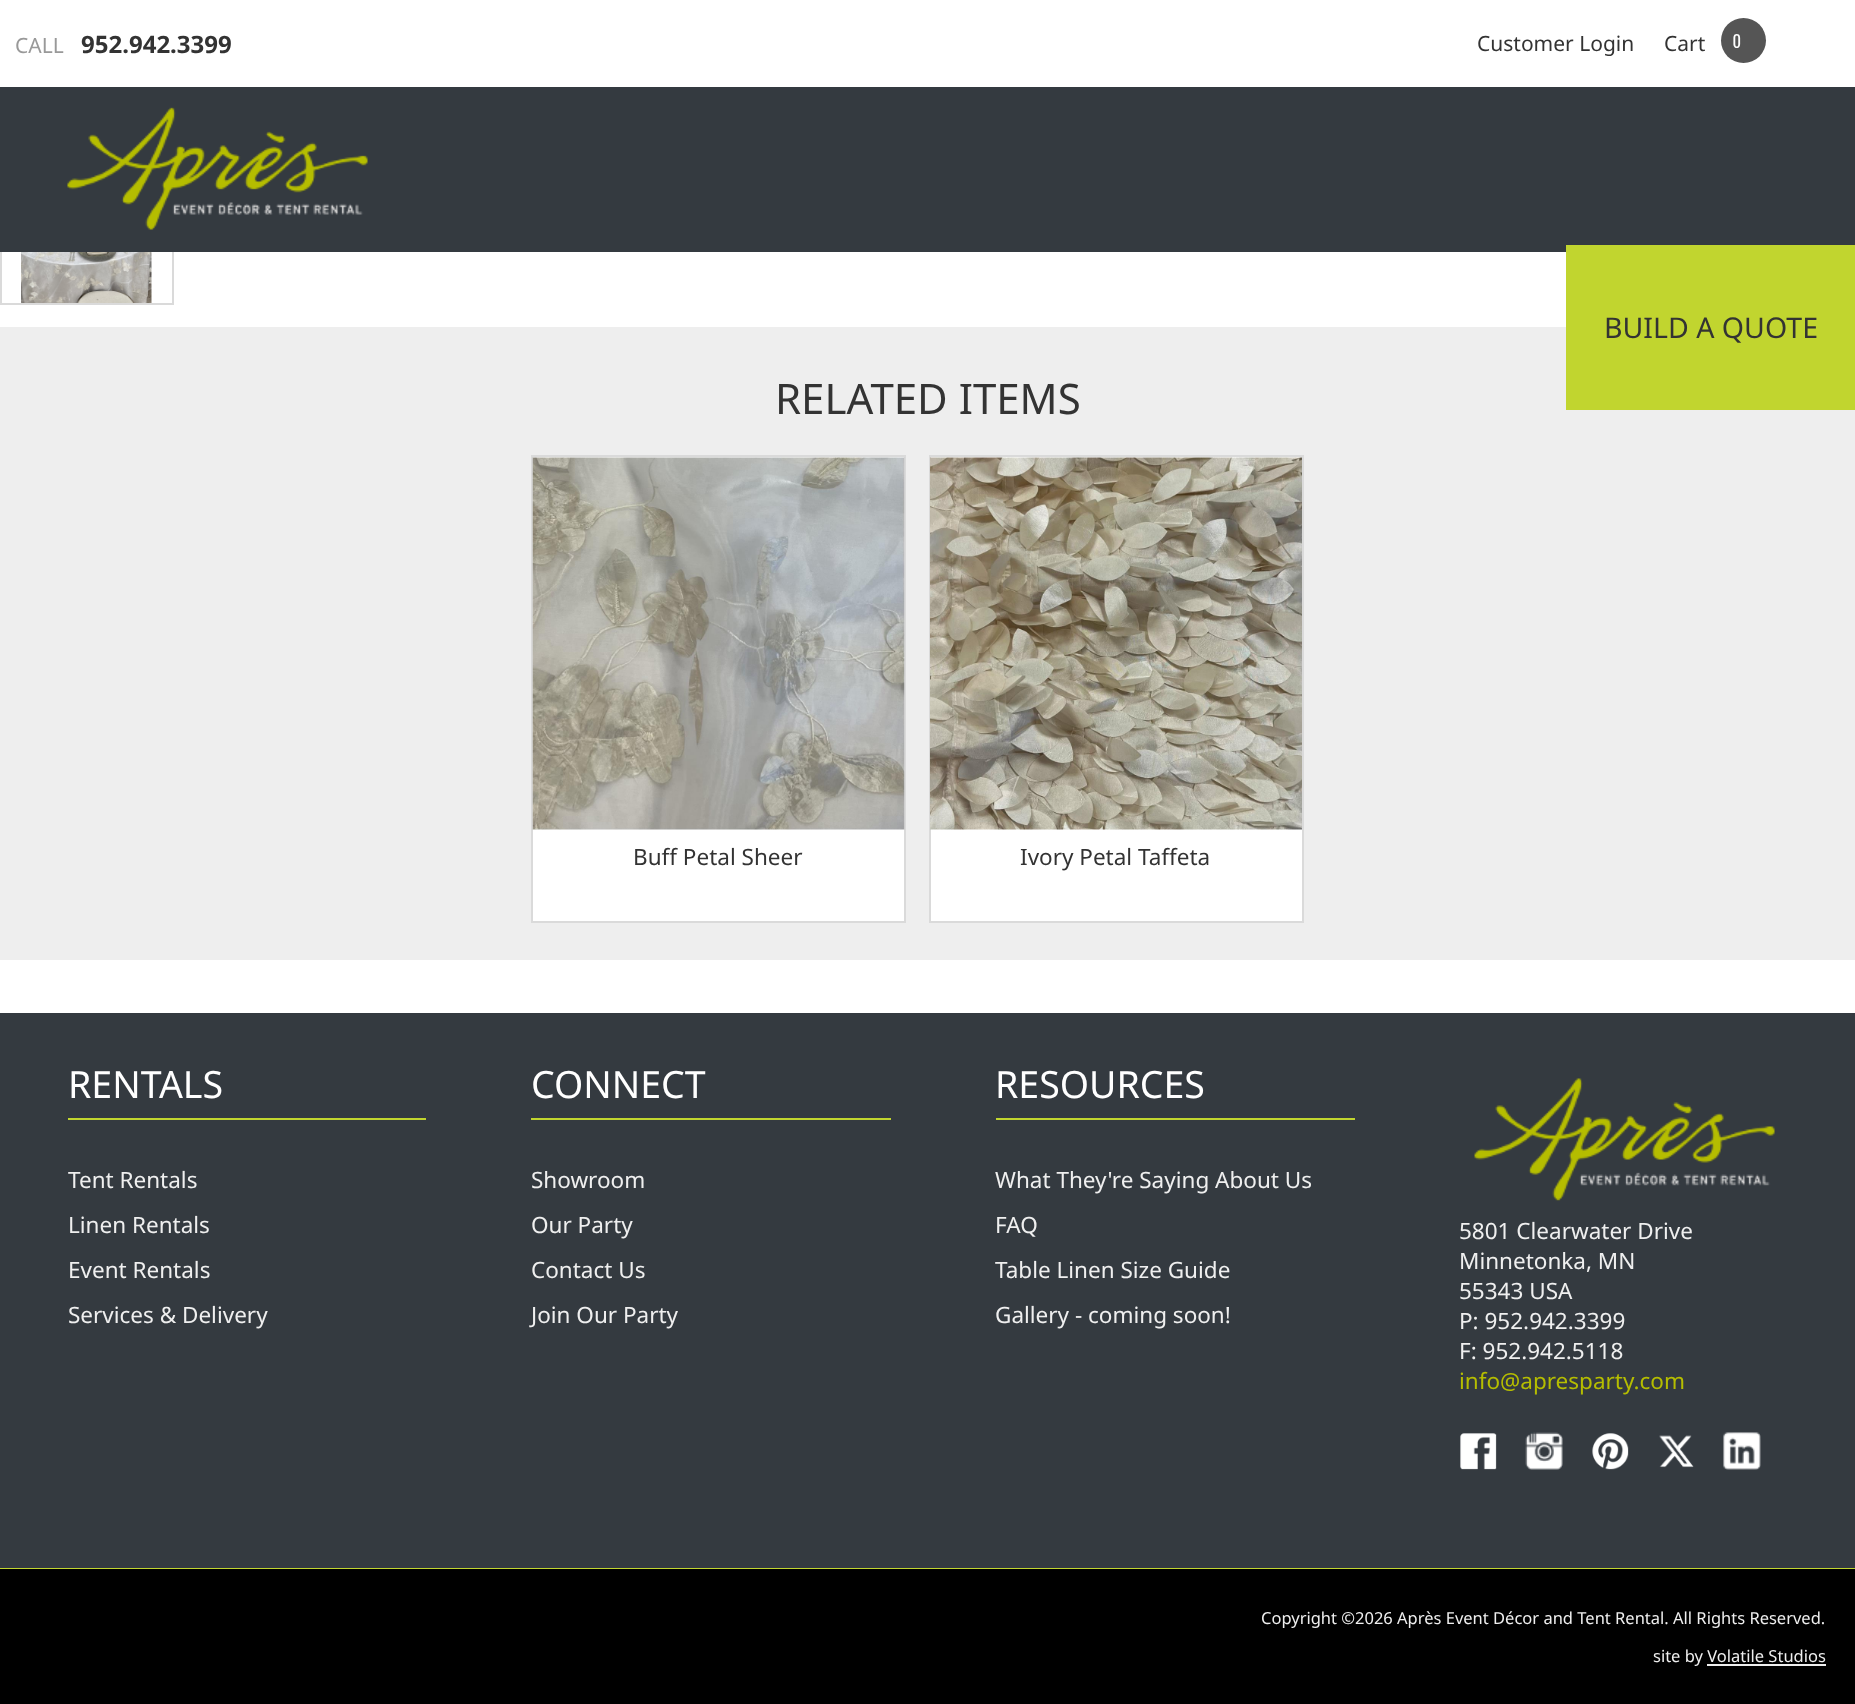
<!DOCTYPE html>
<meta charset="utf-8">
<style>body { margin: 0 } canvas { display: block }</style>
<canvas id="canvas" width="1855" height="1704"></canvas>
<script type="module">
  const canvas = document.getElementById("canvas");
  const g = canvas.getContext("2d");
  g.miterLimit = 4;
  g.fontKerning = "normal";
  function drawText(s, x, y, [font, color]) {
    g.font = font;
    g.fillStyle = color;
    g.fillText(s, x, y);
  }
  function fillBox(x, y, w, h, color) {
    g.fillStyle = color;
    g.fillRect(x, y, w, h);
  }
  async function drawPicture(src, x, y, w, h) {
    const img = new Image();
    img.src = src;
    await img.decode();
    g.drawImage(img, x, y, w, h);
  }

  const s1 = ["21px Noto Sans", "#999999"];
  const s2 = ["bold 24px Noto Sans", "#333333"];
  const s3 = ["21px Noto Sans", "#333333"];
  const s4 = ["28.5px Noto Sans", "#333333"];
  const s5 = ["42px Noto Sans", "#333333"];
  const s6 = ["22.5px Noto Sans", "#333333"];
  const s7 = ["37.5px Noto Sans", "#FFFFFF"];
  const s8 = ["22.5px Noto Sans", "#EFEFEF"];
  const s9 = ["22.5px Noto Sans", "#B5BD00"];
  const s10 = ["16.5px Noto Sans", "#EFEFEF"];

  fillBox(0, 0, 1855, 1704, "#FFFFFF");
  drawText("CALL", 15, 53, s1);
  drawText("952.942.3399", 81, 53, s2);
  drawText("Customer Login", 1477, 51, s3);
  drawText("Cart", 1664, 51, s3);
  g.fillStyle = "#555555";
  g.beginPath();
  g.arc(1743.5, 40.5, 22.5, 0, Math.PI * 2);
  g.fill();
  await drawPicture("pic1.png", 1733, 34, 8, 14);
  g.strokeStyle = "#DADADA";
  g.lineWidth = 2;
  g.strokeRect(1, 129, 172, 175);
  fillBox(0, 87, 1855, 165, "#343A40");
  await drawPicture("pic2.png", 67, 107, 301, 123);
  fillBox(0, 327, 1855, 633, "#EEEEEE");
  fillBox(1566, 245, 289, 165, "#C1D52F");
  drawText("BUILD A QUOTE", 1604, 338, s4);
  await drawPicture("pic3.png", 21, 252, 131, 51);
  drawText("RELATED ITEMS", 775, 414, s5);
  g.fillStyle = "#FFFFFF";
  g.beginPath();
  g.rect(532, 456, 373, 466);
  g.fill();
  g.stroke();
  await drawPicture("pic4.png", 532, 457, 373, 373);
  drawText("Buff Petal Sheer", 633, 865, s6);
  g.fillStyle = "#FFFFFF";
  g.beginPath();
  g.rect(930, 456, 373, 466);
  g.fill();
  g.stroke();
  await drawPicture("pic5.png", 930, 457, 372, 373);
  drawText("Ivory Petal Taffeta", 1020, 865, s6);
  fillBox(0, 1013, 1855, 555, "#343A40");
  fillBox(0, 1568, 1855, 1, "#C1D52F");
  fillBox(68, 1118, 358, 2, "#C1D52F");
  drawText("RENTALS", 68, 1098, s7);
  drawText("Tent Rentals", 68, 1188, s8);
  drawText("Linen Rentals", 68, 1233, s8);
  drawText("Event Rentals", 68, 1278, s8);
  drawText("Services & Delivery", 68, 1323, s8);
  fillBox(531, 1118, 360, 2, "#C1D52F");
  drawText("CONNECT", 531, 1098, s7);
  drawText("Showroom", 531, 1188, s8);
  drawText("Our Party", 531, 1233, s8);
  drawText("Contact Us", 531, 1278, s8);
  drawText("Join Our Party", 531, 1323, s8);
  fillBox(996, 1118, 359, 2, "#C1D52F");
  drawText("RESOURCES", 995, 1098, s7);
  drawText("What They're Saying About Us", 995, 1188, s8);
  drawText("FAQ", 995, 1233, s8);
  drawText("Table Linen Size Guide", 995, 1278, s8);
  drawText("Gallery - coming soon!", 995, 1323, s8);
  await drawPicture("pic6.png", 1474, 1078, 301, 123);
  drawText("5801 Clearwater Drive", 1459, 1239, s8);
  drawText("Minnetonka, MN", 1459, 1269, s8);
  drawText("55343 USA", 1459, 1299, s8);
  drawText("P: 952.942.3399", 1459, 1329, s8);
  drawText("F: 952.942.5118", 1459, 1359, s8);
  drawText("info@apresparty.com", 1459, 1389, s9);
  await drawPicture("pic7.png", 1460, 1433, 37, 37);
  await drawPicture("pic8.png", 1525, 1432, 38, 38);
  await drawPicture("pic9.png", 1592, 1433, 37, 37);
  await drawPicture("pic10.png", 1659, 1435, 35, 33);
  await drawPicture("pic11.png", 1723, 1432, 38, 38);
  fillBox(0, 1569, 1855, 135, "#000000");
  drawText("Copyright ©2026 Après Event Décor and Tent Rental. All Rights Reserved.", 1261, 1624, s10);
  drawText("site by Volatile Studios", 1653, 1662, s10);
  fillBox(1707, 1664, 119, 2, "#EFEFEF");
</script>
